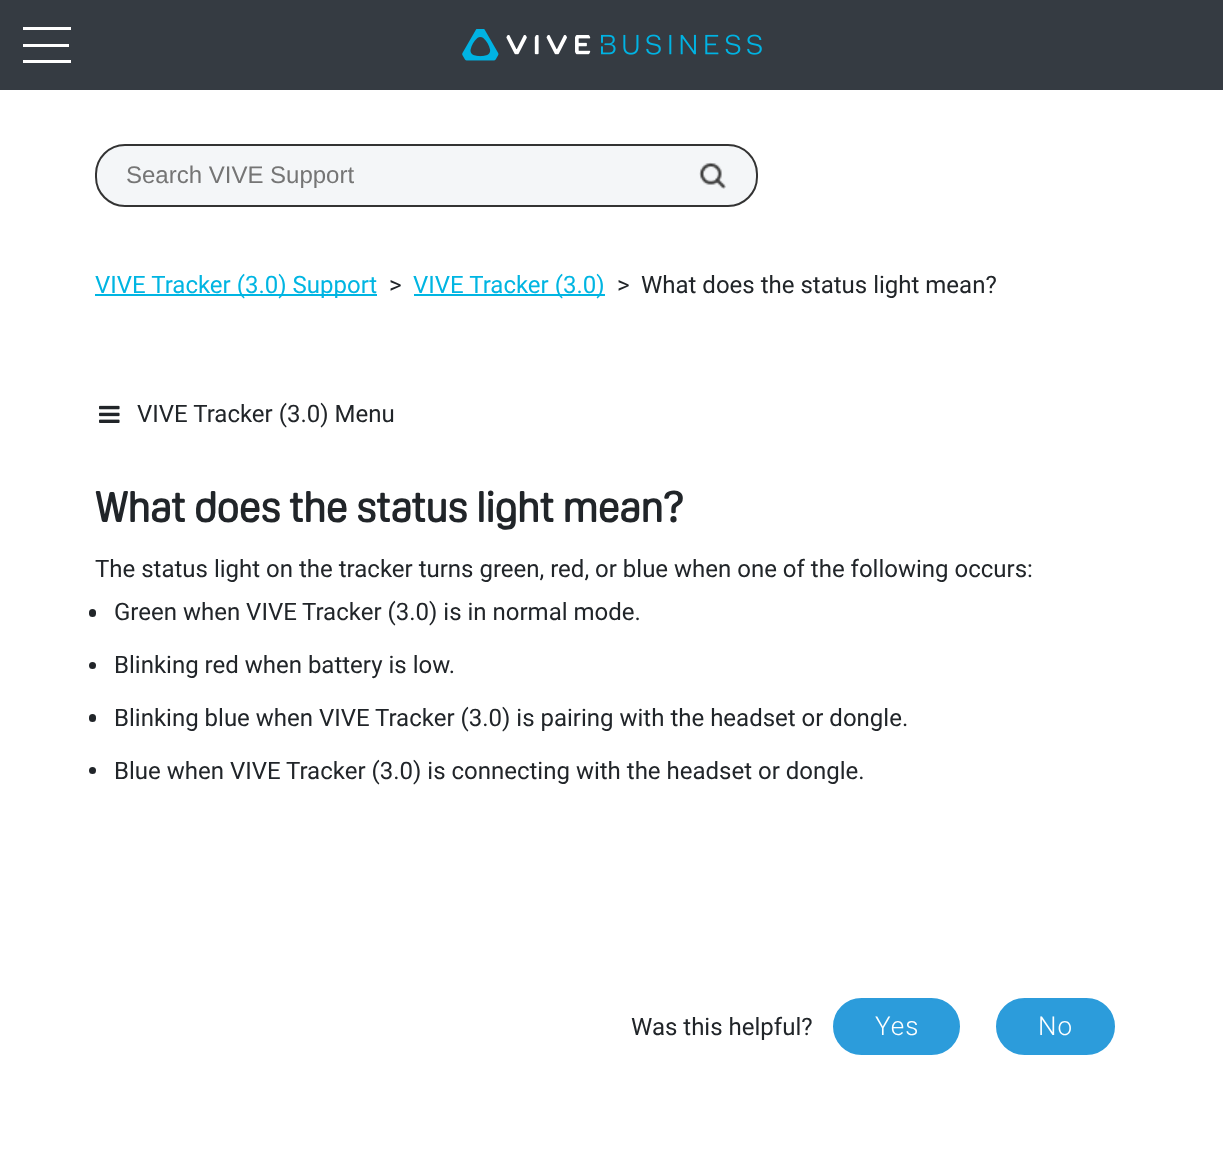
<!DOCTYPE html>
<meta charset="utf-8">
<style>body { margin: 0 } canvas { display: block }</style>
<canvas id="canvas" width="1223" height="1169"></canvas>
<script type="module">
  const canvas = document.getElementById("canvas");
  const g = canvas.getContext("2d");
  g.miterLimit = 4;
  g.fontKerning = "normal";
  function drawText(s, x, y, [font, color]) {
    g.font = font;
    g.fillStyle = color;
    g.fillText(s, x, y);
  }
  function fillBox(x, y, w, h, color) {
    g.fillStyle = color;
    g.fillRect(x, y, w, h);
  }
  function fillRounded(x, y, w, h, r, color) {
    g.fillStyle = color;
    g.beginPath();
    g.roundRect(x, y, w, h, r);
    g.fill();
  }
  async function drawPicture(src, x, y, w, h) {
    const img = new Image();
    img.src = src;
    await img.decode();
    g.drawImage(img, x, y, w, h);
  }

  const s1 = ["24px Liberation Sans", "#757575"];
  const s2 = ["24px Roboto", "#00B5E2"];
  const s3 = ["24px Roboto", "#212529"];
  const s4 = ["bold 42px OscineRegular", "#212529"];
  const s5 = ["300 26px Roboto", "#FFFFFF"];

  fillBox(0, 0, 1223, 1169, "#FFFFFF");
  fillBox(0, 0, 1223, 90, "#353B42");
  fillBox(23, 44, 46, 3, "#FFFFFF");
  fillBox(23, 27, 48, 3, "#FFFFFF");
  fillBox(23, 60, 48, 3, "#FFFFFF");
  await drawPicture("pic1.png", 462, 29, 300, 32);
  g.fillStyle = "#F4F6F8";
  g.beginPath();
  g.roundRect(96, 145, 661, 61, 29);
  g.fill();
  g.strokeStyle = "#333333";
  g.lineWidth = 2;
  g.stroke();
  drawText("Search VIVE Support", 126, 183, s1);
  await drawPicture("pic2.png", 699, 162, 27, 27);
  fillBox(95, 294, 282, 2, "#00B5E2");
  drawText("VIVE Tracker (3.0) Support", 95, 293, s2);
  drawText(">", 389, 293, s3);
  fillBox(414, 294, 191, 2, "#00B5E2");
  drawText("VIVE Tracker (3.0)", 413, 293, s2);
  drawText(">", 617, 293, s3);
  drawText("What does the status light mean?", 641, 293, s3);
  await drawPicture("pic3.png", 99, 405, 21, 18);
  drawText("VIVE Tracker (3.0) Menu", 137, 422, s3);
  drawText("What does the status light mean?", 95, 522, s4);
  drawText("The status light on the tracker turns green, red, or blue when one of the following occurs:", 95, 577, s3);
  fillRounded(89, 609, 7, 8, 3.5, "#212529");
  drawText("Green when VIVE", 114, 620, s3);
  drawText("Tracker (3.0) is in normal mode.", 302, 620, s3);
  g.beginPath();
  g.arc(92.5, 665.5, 3.5, 0, Math.PI * 2);
  g.fill();
  drawText("Blinking red when battery is low.", 114, 673, s3);
  fillRounded(89, 714, 7, 8, 3.5, "#212529");
  drawText("Blinking blue when VIVE", 114, 726, s3);
  drawText("Tracker (3.0) is pairing with the headset or dongle.", 375, 726, s3);
  g.beginPath();
  g.arc(92.5, 770.5, 3.5, 0, Math.PI * 2);
  g.fill();
  drawText("Blue when VIVE", 114, 779, s3);
  drawText("Tracker (3.0) is connecting with the headset or dongle.", 286, 779, s3);
  drawText("Was this helpful?", 631, 1035, s3);
  g.fillStyle = "#2C9CDB";
  g.beginPath();
  g.roundRect(834, 999, 125, 55, 27.5);
  g.fill();
  g.strokeStyle = "#2C9CDB";
  g.stroke();
  g.letterSpacing = "1px";
  drawText("Yes", 875, 1035, s5);
  g.fillStyle = "#2C9CDB";
  g.beginPath();
  g.roundRect(997, 999, 117, 55, 27.5);
  g.fill();
  g.stroke();
  drawText("No", 1038, 1035, s5);
</script>
